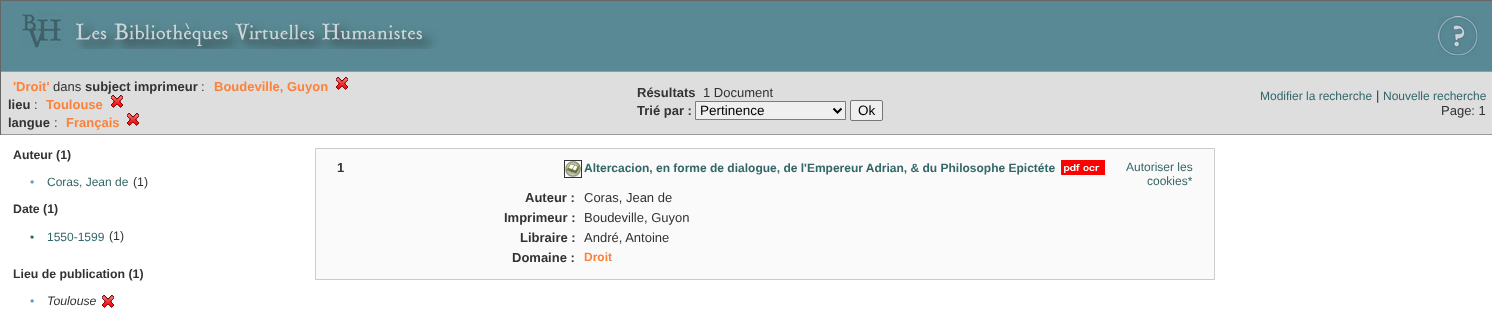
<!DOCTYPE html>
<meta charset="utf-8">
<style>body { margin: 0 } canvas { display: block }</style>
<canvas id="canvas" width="1492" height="323"></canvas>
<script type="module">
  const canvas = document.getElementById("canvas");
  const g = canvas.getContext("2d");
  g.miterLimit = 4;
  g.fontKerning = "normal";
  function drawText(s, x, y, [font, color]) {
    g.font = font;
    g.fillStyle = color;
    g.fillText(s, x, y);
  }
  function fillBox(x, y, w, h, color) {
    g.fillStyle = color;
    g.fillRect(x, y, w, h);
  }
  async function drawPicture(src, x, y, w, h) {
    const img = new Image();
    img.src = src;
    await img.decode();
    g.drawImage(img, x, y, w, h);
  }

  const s1 = ["bold 13px Liberation Sans", "#FD8239"];
  const s2 = ["13px Liberation Sans", "#333333"];
  const s3 = ["bold 13px Liberation Sans", "#333333"];
  const s4 = ["13.5px Liberation Sans", "#000000"];
  const s5 = ["12px Liberation Sans", "#336666"];
  const s6 = ["bold 12.3px Liberation Sans", "#333333"];
  const s7 = ["12.3px Liberation Sans", "#6699CC"];
  const s8 = ["12.3px Liberation Sans", "#333333"];
  const s9 = ["italic 12.3px Liberation Sans", "#333333"];
  const s10 = ["bold 12px Liberation Sans", "#336666"];
  const s11 = ["bold 12px Liberation Sans", "#FD8239"];

  fillBox(0, 0, 1492, 323, "#598995");
  fillBox(0, 0, 1492, 1, "#666666");
  fillBox(0, 0, 1, 71, "#666666");
  await drawPicture("pic1.png", 21, 12, 417, 37);
  await drawPicture("pic2.png", 1438, 16, 40, 40);
  fillBox(1, 72, 1491, 62, "#DEDEDF");
  fillBox(0, 71, 1492, 1, "#999999");
  fillBox(0, 134, 1492, 1, "#999999");
  fillBox(0, 71, 1, 64, "#666666");
  drawText("'Droit'", 13, 91, s1);
  drawText("dans", 53, 91, s2);
  drawText("subject imprimeur", 85, 91, s3);
  drawText(":", 201, 91, s2);
  drawText("Boudeville, Guyon", 214, 91, s1);
  await drawPicture("pic3.png", 336, 77, 12, 13);
  drawText("lieu", 8, 109, s3);
  drawText(":", 34, 109, s2);
  drawText("Toulouse", 46, 109, s1);
  await drawPicture("pic3.png", 111, 95, 12, 13);
  drawText("langue", 8, 127, s3);
  drawText(":", 54, 127, s2);
  drawText("Français", 66, 127, s1);
  await drawPicture("pic3.png", 127, 113, 12, 13);
  drawText("Résultats", 637, 97, s3);
  drawText("1 Document", 703, 97, s2);
  drawText("Trié par :", 637, 115, s3);
  g.fillStyle = "#EFEFEF";
  g.beginPath();
  g.rect(695.5, 101.5, 150, 18);
  g.fill();
  g.strokeStyle = "#598995";
  g.stroke();
  g.beginPath();
  g.moveTo(833.5, 108.5);
  g.lineTo(837.5, 112.5);
  g.lineTo(841.5, 108.5);
  g.strokeStyle = "#000000";
  g.lineWidth = 2;
  g.stroke();
  drawText("Pertinence", 700, 115, s4);
  g.fillStyle = "#EFEFEF";
  g.beginPath();
  g.roundRect(850.5, 100.5, 32, 20, 1.5);
  g.fill();
  g.strokeStyle = "#767676";
  g.lineWidth = 1;
  g.stroke();
  drawText("Ok", 858, 115, s4);
  drawText("Modifier la recherche", 1260, 100, s5);
  drawText("|", 1376, 100, s2);
  drawText("Nouvelle recherche", 1383, 100, s5);
  drawText("Page: 1", 1441, 115, s2);
  fillBox(0, 135, 1492, 188, "#FFFFFF");
  drawText("Auteur (1)", 13, 159, s6);
  drawText("•", 30, 186, s7);
  drawText("Coras, Jean de", 47, 186, s5);
  drawText("(1)", 133, 186, s8);
  drawText("Date (1)", 13, 213, s6);
  drawText("•", 30, 241, s5);
  drawText("1550-1599", 47, 241, s5);
  drawText("(1)", 109, 240, s8);
  drawText("Lieu de publication (1)", 13, 278, s6);
  drawText("•", 30, 305, s7);
  drawText("Toulouse", 47, 305, s9);
  await drawPicture("pic4.png", 102, 295, 12, 13);
  g.fillStyle = "#FAFAFB";
  g.beginPath();
  g.rect(315.5, 148.5, 899, 131);
  g.fill();
  g.strokeStyle = "#CCCCCC";
  g.stroke();
  drawText("1", 337, 172, s3);
  g.strokeStyle = "#333333";
  g.strokeRect(564.5, 160.5, 17, 17);
  await drawPicture("pic5.png", 565, 161, 16, 16);
  drawText("Altercacion, en forme de dialogue, de l'Empereur Adrian, & du Philosophe Epictéte", 584, 172, s10);
  await drawPicture("pic6.png", 1061, 160, 44, 15);
  drawText("Autoriser les", 1126, 171, s5);
  drawText("cookies*", 1147, 185, s5);
  drawText("Auteur :", 525, 202, s3);
  drawText("Coras, Jean de", 584, 202, s2);
  drawText("Imprimeur :", 504, 222, s3);
  drawText("Boudeville, Guyon", 584, 222, s2);
  drawText("Libraire :", 520, 242, s3);
  drawText("André, Antoine", 584, 242, s2);
  drawText("Domaine :", 512, 262, s3);
  drawText("Droit", 584, 261, s11);
</script>
